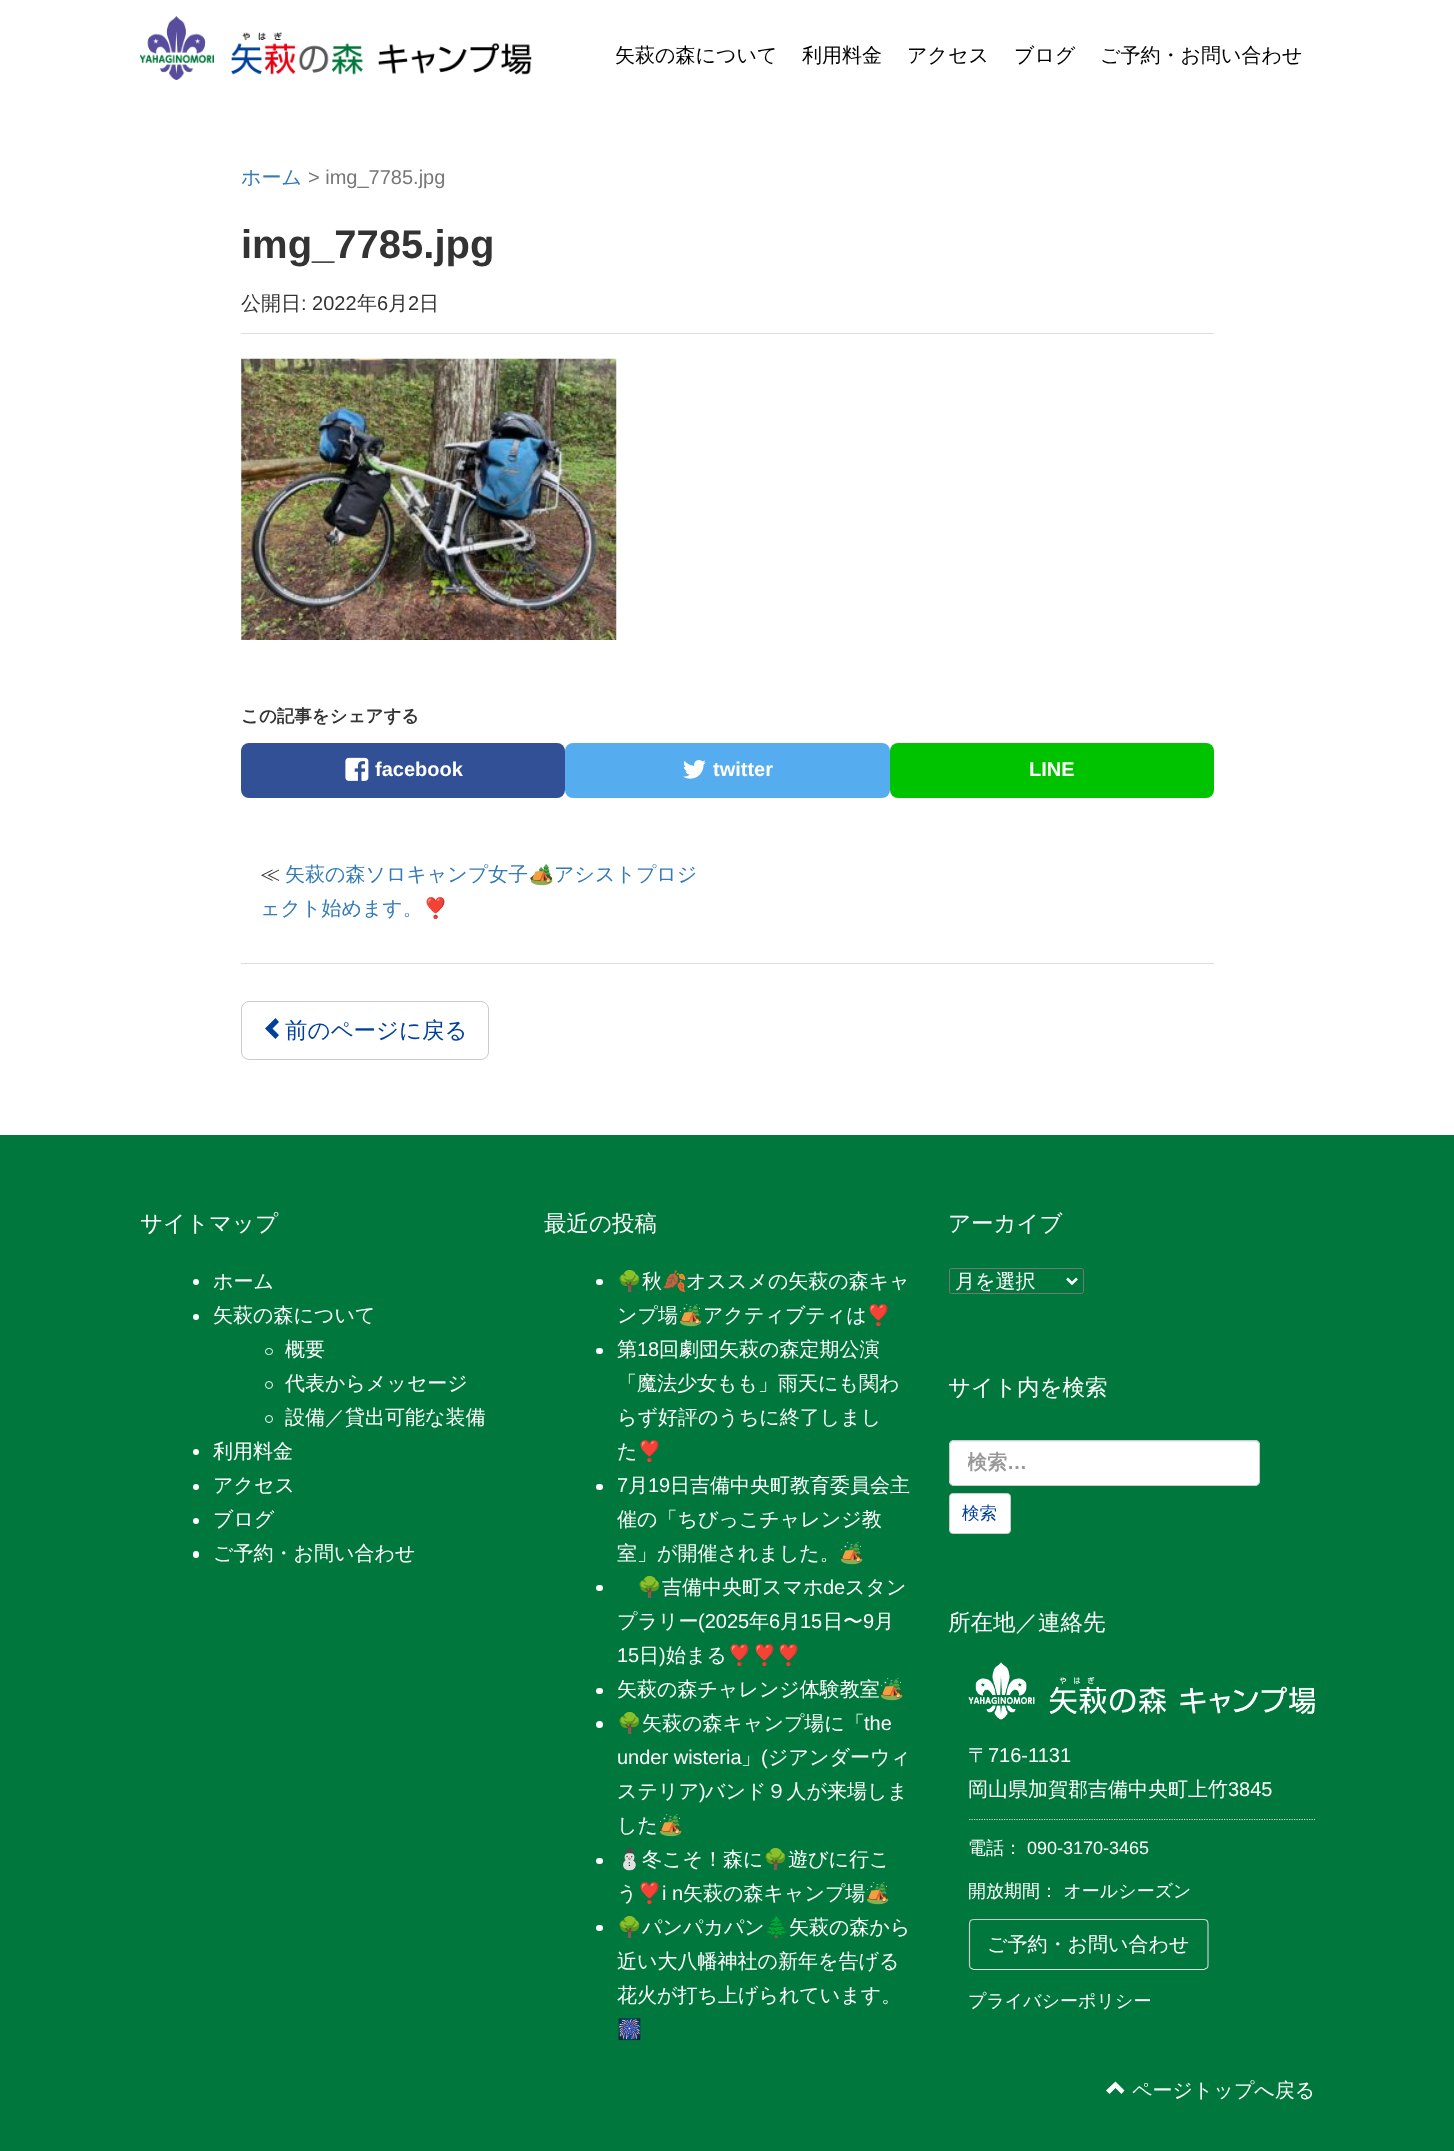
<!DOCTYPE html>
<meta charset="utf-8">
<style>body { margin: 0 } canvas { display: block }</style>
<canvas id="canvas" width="1454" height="2151"></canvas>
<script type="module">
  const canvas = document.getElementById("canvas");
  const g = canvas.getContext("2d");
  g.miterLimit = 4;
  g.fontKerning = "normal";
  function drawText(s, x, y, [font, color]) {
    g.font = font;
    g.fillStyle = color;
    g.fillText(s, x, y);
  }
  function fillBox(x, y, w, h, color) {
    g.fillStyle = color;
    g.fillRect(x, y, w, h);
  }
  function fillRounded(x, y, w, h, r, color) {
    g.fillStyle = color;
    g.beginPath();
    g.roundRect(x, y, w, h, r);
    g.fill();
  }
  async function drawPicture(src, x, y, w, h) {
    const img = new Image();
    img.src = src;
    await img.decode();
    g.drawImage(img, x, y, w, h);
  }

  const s1 = ["500 20px WenQuanYi Zen Hei", "#000000"];
  const s2 = ["500 20px WenQuanYi Zen Hei", "#337AB7"];
  const s3 = ["20px Liberation Sans", "#777777"];
  const s4 = ["bold 40px Liberation Sans", "#333333"];
  const s5 = ["500 20px WenQuanYi Zen Hei", "#333333"];
  const s6 = ["20px Liberation Sans", "#333333"];
  const s7 = ["bold 17.5px WenQuanYi Zen Hei", "#333333"];
  const s8 = ["bold 20px Liberation Sans", "#FFFFFF"];
  const s9 = ["20px Noto Color Emoji", "#337AB7"];
  const s10 = ["500 22.5px WenQuanYi Zen Hei", "#004098"];
  const s11 = ["500 22.5px WenQuanYi Zen Hei", "#FFFFFF"];
  const s12 = ["500 20px WenQuanYi Zen Hei", "#FFFFFF"];
  const s13 = ["20px Noto Color Emoji", "#FFFFFF"];
  const s14 = ["20px Liberation Sans", "#FFFFFF"];
  const s15 = ["bold 20px WenQuanYi Zen Hei", "#999999"];
  const s16 = ["bold 20px Liberation Sans", "#999999"];
  const s17 = ["500 17.5px WenQuanYi Zen Hei", "#004098"];
  const s18 = ["500 18px WenQuanYi Zen Hei", "#FFFFFF"];
  const s19 = ["18px Liberation Sans", "#FFFFFF"];

  fillBox(0, 0, 1454, 2151, "#FFFFFF");
  await drawPicture("pic1.png", 140, 16, 392, 64);
  drawText("矢萩の森について", 615, 62, s1);
  drawText("利用料金", 802, 62, s1);
  drawText("アクセス", 907, 62, s1);
  drawText("ブログ", 1014, 62, s1);
  drawText("ご予約・お問い合わせ", 1100, 62, s1);
  drawText("ホーム", 241, 184, s2);
  drawText("> img_7785.jpg", 308, 184, s3);
  drawText("img_7785.jpg", 241, 258, s4);
  fillBox(241, 333, 973, 1, "#DDDDDD");
  drawText("公開日", 241, 310, s5);
  drawText(": 2022", 301, 310, s6);
  drawText("年", 357, 310, s5);
  drawText("6", 377, 310, s6);
  drawText("月", 388, 310, s5);
  drawText("2", 408, 310, s6);
  drawText("日", 419, 310, s5);
  await drawPicture("pic2.png", 241, 358, 376, 282);
  drawText("この記事をシェアする", 241, 722, s7);
  fillRounded(241, 743, 324, 55, 8, "#315096");
  await drawPicture("pic3.png", 345, 757, 24, 24);
  drawText("facebook", 375, 776, s8);
  fillRounded(565, 743, 325, 55, 8, "#55ACEE");
  await drawPicture("pic4.png", 683, 760, 23, 19);
  drawText("twitter", 713, 776, s8);
  fillRounded(890, 743, 324, 55, 8, "#00C300");
  drawText("LINE", 1029, 776, s8);
  drawText("≪", 260, 881, s5);
  drawText("矢萩の森ソロキャンプ女子", 285, 881, s2);
  drawText("🏕", 529, 881, s9);
  drawText("アシストプロジ", 554, 881, s2);
  drawText("ェクト始めます。", 260, 915, s2);
  drawText("❣️", 423, 915, s9);
  fillBox(241, 963, 973, 1, "#DDDDDD");
  g.beginPath();
  g.roundRect(241.5, 1001.5, 247, 58, 7.5);
  g.strokeStyle = "#CCCCCC";
  g.stroke();
  g.fillStyle = "#004098";
  g.beginPath();
  g.moveTo(279, 1022);
  g.lineTo(272.5, 1028.5);
  g.lineTo(279, 1035);
  g.lineTo(275.5, 1039);
  g.lineTo(265, 1028.5);
  g.lineTo(275.5, 1018);
  g.closePath();
  g.fill();
  drawText("前のページに戻る", 285, 1038, s10);
  fillBox(0, 1135, 1454, 1016, "#00783D");
  drawText("サイトマップ", 140, 1231, s11);
  g.beginPath();
  g.arc(196, 1282, 3, 0, Math.PI * 2);
  g.fill();
  drawText("ホーム", 213, 1288, s12);
  g.beginPath();
  g.arc(196, 1317, 3, 0, Math.PI * 2);
  g.fill();
  drawText("矢萩の森について", 213, 1322, s12);
  g.beginPath();
  g.roundRect(265.5, 1348.5, 7, 6, 3);
  g.strokeStyle = "#FFFFFF";
  g.stroke();
  drawText("概要", 285, 1356, s12);
  g.beginPath();
  g.arc(269, 1385, 3.5, 0, Math.PI * 2);
  g.stroke();
  drawText("代表からメッセージ", 285, 1390, s12);
  g.beginPath();
  g.arc(269, 1419, 3.5, 0, Math.PI * 2);
  g.stroke();
  drawText("設備／貸出可能な装備", 285, 1424, s12);
  g.beginPath();
  g.arc(196, 1452, 3, 0, Math.PI * 2);
  g.fill();
  drawText("利用料金", 213, 1458, s12);
  g.beginPath();
  g.arc(196, 1487, 3, 0, Math.PI * 2);
  g.fill();
  drawText("アクセス", 213, 1492, s12);
  g.beginPath();
  g.arc(196, 1521, 3, 0, Math.PI * 2);
  g.fill();
  drawText("ブログ", 213, 1526, s12);
  fillRounded(193, 1551, 6, 7, 3, "#FFFFFF");
  drawText("ご予約・お問い合わせ", 213, 1560, s12);
  drawText("最近の投稿", 544, 1231, s11);
  fillRounded(596, 1279, 7, 6, 3, "#FFFFFF");
  drawText("🌳", 617, 1288, s13);
  drawText("秋", 642, 1288, s12);
  drawText("🍂", 662, 1288, s13);
  drawText("オススメの矢萩の森キャ", 686, 1288, s12);
  drawText("ンプ場", 617, 1322, s12);
  drawText("🏕️", 678, 1322, s13);
  drawText("アクティブティは", 703, 1322, s12);
  drawText("❣️", 866, 1322, s13);
  fillRounded(596, 1348, 7, 6, 3, "#FFFFFF");
  drawText("第", 617, 1356, s12);
  drawText("18", 637, 1356, s14);
  drawText("回劇団矢萩の森定期公演", 659, 1356, s12);
  drawText("「魔法少女もも」雨天にも関わ", 617, 1390, s12);
  drawText("らず好評のうちに終了しまし", 617, 1424, s12);
  drawText("た", 617, 1458, s12);
  drawText("❣️", 637, 1458, s13);
  fillRounded(596, 1484, 7, 6, 3, "#FFFFFF");
  drawText("7", 617, 1492, s14);
  drawText("月", 628, 1492, s12);
  drawText("19", 648, 1492, s14);
  drawText("日吉備中央町教育委員会主", 670, 1492, s12);
  drawText("催の「ちびっこチャレンジ教", 617, 1526, s12);
  drawText("室」が開催されました。", 617, 1560, s12);
  drawText("🏕️", 839, 1560, s13);
  fillRounded(596, 1585, 7, 6, 3, "#FFFFFF");
  drawText("🌳", 637, 1594, s13);
  drawText("吉備中央町スマホ", 662, 1594, s12);
  drawText("de", 823, 1594, s14);
  drawText("スタン", 845, 1594, s12);
  drawText("プラリー", 617, 1628, s12);
  drawText("(2025", 698, 1628, s14);
  drawText("年", 749, 1628, s12);
  drawText("6", 769, 1628, s14);
  drawText("月", 780, 1628, s12);
  drawText("15", 800, 1628, s14);
  drawText("日〜", 823, 1628, s12);
  drawText("9", 863, 1628, s14);
  drawText("月", 874, 1628, s12);
  drawText("15", 617, 1662, s14);
  drawText("日", 639, 1662, s12);
  drawText(")", 659, 1662, s14);
  drawText("始まる", 666, 1662, s12);
  drawText("❣️❣️❣️", 727, 1662, s13);
  fillRounded(596, 1688, 7, 6, 3, "#FFFFFF");
  drawText("矢萩の森チャレンジ体験教室", 617, 1696, s12);
  drawText("🏕️", 879, 1696, s13);
  g.beginPath();
  g.arc(599.5, 1724.5, 3.5, 0, Math.PI * 2);
  g.fill();
  drawText("🌳", 617, 1730, s13);
  drawText("矢萩の森キャンプ場に「", 642, 1730, s12);
  drawText("the", 864, 1730, s14);
  drawText("under wisteria", 617, 1764, s14);
  drawText("」", 741, 1764, s12);
  drawText("(", 761, 1764, s14);
  drawText("ジアンダーウィ", 768, 1764, s12);
  drawText("ステリア", 617, 1798, s12);
  drawText(")", 699, 1798, s14);
  drawText("バンド９人が来場しま", 705, 1798, s12);
  drawText("した", 617, 1832, s12);
  drawText("🏕️", 658, 1832, s13);
  fillRounded(596, 1858, 7, 6, 3, "#FFFFFF");
  drawText("⛄️", 617, 1866, s13);
  drawText("冬こそ！森に", 642, 1866, s12);
  drawText("🌳", 763, 1866, s13);
  drawText("遊びに行こ", 788, 1866, s12);
  drawText("う", 617, 1900, s12);
  drawText("❣️", 637, 1900, s13);
  drawText("i n", 662, 1900, s14);
  drawText("矢萩の森キャンプ場", 683, 1900, s12);
  drawText("🏕️", 865, 1900, s13);
  fillRounded(596, 1925, 7, 6, 3, "#FFFFFF");
  drawText("🌳", 617, 1934, s13);
  drawText("パンパカパン", 642, 1934, s12);
  drawText("🌲", 764, 1934, s13);
  drawText("矢萩の森から", 789, 1934, s12);
  drawText("近い大八幡神社の新年を告げる", 617, 1968, s12);
  drawText("花火が打ち上げられています。", 617, 2002, s12);
  drawText("🎆", 617, 2036, s13);
  drawText("アーカイブ", 948, 1231, s11);
  g.beginPath();
  g.roundRect(949.5, 1268.5, 134, 25, 2);
  g.strokeStyle = "#767676";
  g.stroke();
  g.beginPath();
  g.moveTo(1067, 1278.5);
  g.lineTo(1072, 1283.5);
  g.lineTo(1077, 1278.5);
  g.strokeStyle = "#FFFFFF";
  g.lineWidth = 2.5;
  g.stroke();
  drawText("月を選択", 955, 1288, s12);
  drawText("サイト内を検索", 948, 1395, s11);
  fillRounded(949, 1440, 311, 46, 5, "#FFFFFF");
  g.fillStyle = "#ECECEC";
  g.beginPath();
  g.moveTo(954, 1442);
  g.lineTo(1255, 1442);
  g.bezierCurveTo(1257, 1442, 1259, 1444, 1259, 1446);
  g.bezierCurveTo(1259, 1443, 1258, 1441, 1255, 1441);
  g.lineTo(954, 1441);
  g.lineTo(951, 1442);
  g.bezierCurveTo(950, 1443, 950, 1445, 950, 1446);
  g.bezierCurveTo(950, 1444, 952, 1442, 954, 1442);
  g.closePath();
  g.fill();
  g.beginPath();
  g.roundRect(949.5, 1440.5, 310, 45, 4.5);
  g.strokeStyle = "#CCCCCC";
  g.lineWidth = 1;
  g.stroke();
  g.save();
  g.beginPath();
  g.rect(968, 1451, 268, 27);
  g.clip();
  drawText("検索", 967, 1469, s15);
  g.restore();
  drawText("…", 1007, 1469, s16);
  g.fillStyle = "#FFFFFF";
  g.beginPath();
  g.roundRect(949.5, 1493.5, 61, 40, 3.5);
  g.fill();
  g.stroke();
  drawText("検索", 962, 1519, s17);
  drawText("所在地／連絡先", 948, 1630, s11);
  g.beginPath();
  g.moveTo(969, 1819.5);
  g.lineTo(1315, 1819.5);
  g.strokeStyle = "#DDDDDD";
  g.lineWidth = 1.2;
  g.setLineDash([1.25, 1.25]);
  g.stroke();
  await drawPicture("pic5.png", 968, 1662, 347, 58);
  drawText("〒", 968, 1762, s12);
  drawText("716-1131", 988, 1762, s14);
  drawText("岡山県加賀郡吉備中央町上竹", 968, 1796, s12);
  drawText("3845", 1228, 1796, s14);
  drawText("電話：", 968, 1854, s18);
  drawText("090-3170-3465", 1027, 1854, s19);
  drawText("開放期間： オールシーズン", 968, 1897, s18);
  g.beginPath();
  g.moveTo(1207, 1968);
  g.lineTo(1204, 1969.5);
  g.lineTo(973.5, 1969.5);
  g.lineTo(970.5, 1968);
  g.setLineDash([]);
  g.stroke();
  g.beginPath();
  g.moveTo(970.5, 1968);
  g.bezierCurveTo(970, 1967.5, 969.5, 1966, 969.5, 1965);
  g.lineTo(969.5, 1924);
  g.bezierCurveTo(969.5, 1922.5, 970, 1921.5, 970.5, 1920.5);
  g.bezierCurveTo(971.5, 1920, 972.5, 1919.5, 974, 1919.5);
  g.lineTo(1204, 1919.5);
  g.bezierCurveTo(1205, 1919.5, 1206, 1920, 1207, 1920.5);
  g.bezierCurveTo(1207.5, 1921.5, 1208, 1922.5, 1208, 1924);
  g.lineTo(1208, 1965);
  g.bezierCurveTo(1208, 1966, 1207.5, 1967.5, 1207, 1968);
  g.strokeStyle = "#CCCCCC";
  g.stroke();
  drawText("ご予約・お問い合わせ", 987, 1951, s12);
  drawText("プライバシーポリシー", 968, 2007, s18);
  g.beginPath();
  g.moveTo(1124.5, 2090.5);
  g.lineTo(1121.5, 2094);
  g.lineTo(1115.5, 2088);
  g.lineTo(1109.5, 2094);
  g.lineTo(1106, 2090.5);
  g.lineTo(1115.5, 2081.5);
  g.closePath();
  g.fill();
  drawText("ページトップへ戻る", 1132, 2097, s12);
</script>
